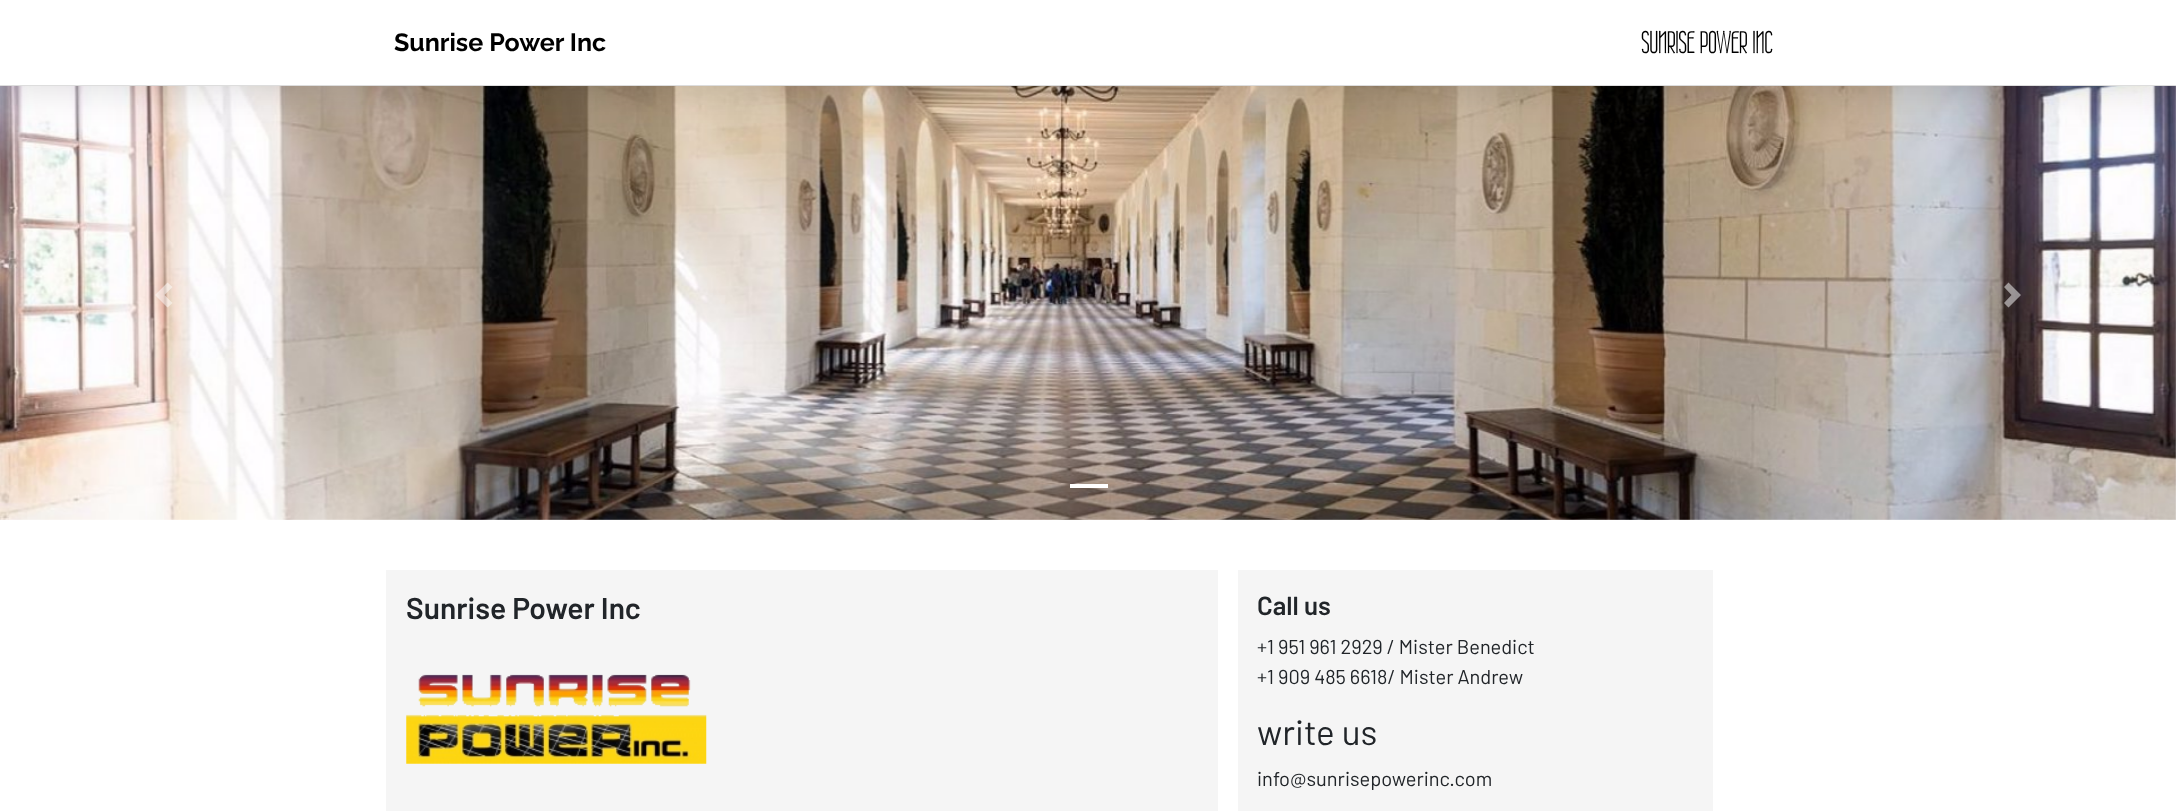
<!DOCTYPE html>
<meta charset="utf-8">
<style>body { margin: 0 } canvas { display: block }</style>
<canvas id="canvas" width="2176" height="811"></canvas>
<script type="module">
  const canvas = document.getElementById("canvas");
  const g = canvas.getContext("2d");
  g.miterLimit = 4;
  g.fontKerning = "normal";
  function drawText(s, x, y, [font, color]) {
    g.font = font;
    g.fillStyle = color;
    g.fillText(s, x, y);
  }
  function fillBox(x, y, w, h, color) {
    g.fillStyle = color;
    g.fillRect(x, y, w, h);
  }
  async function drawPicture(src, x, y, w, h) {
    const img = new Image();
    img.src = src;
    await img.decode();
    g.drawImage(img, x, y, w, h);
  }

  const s1 = ["100 25px Raleway", "#000000"];
  const s2 = ["bold 30px Wire One", "#000000"];
  const s3 = ["600 30px Barlow", "#212529"];
  const s4 = ["600 26px Barlow", "#212529"];
  const s5 = ["20px Barlow", "#212529"];
  const s6 = ["35px Barlow", "#212529"];

  fillBox(0, 0, 2176, 811, "#FFFFFF");
  await drawPicture("pic1.png", 0, 86, 2176, 434);
  g.fillStyle = "rgba(0, 0, 0, 0.15)";
  g.filter = "blur(20px)";
  g.beginPath();
  g.rect(0, 0, 2176, 86);
  g.fill();
  g.filter = "none";
  fillBox(0, 0, 2176, 85, "#FFFFFF");
  fillBox(0, 85, 2176, 1, "#DDDDDD");
  drawText("Sunrise Power Inc", 394, 51, s1);
  drawText("SUNRISE POWER INC", 1641, 53, s2);
  g.fillStyle = "rgba(255, 255, 255, 0.5)";
  g.beginPath();
  g.moveTo(167.5, 282.5);
  g.lineTo(155, 295);
  g.lineTo(167.5, 307.5);
  g.lineTo(172.5, 303);
  g.lineTo(164.5, 295);
  g.lineTo(172.5, 287);
  g.closePath();
  g.fill();
  g.beginPath();
  g.moveTo(2008.5, 282.5);
  g.lineTo(2004, 287);
  g.lineTo(2011.5, 295);
  g.lineTo(2004, 303);
  g.lineTo(2008.5, 307.5);
  g.lineTo(2021, 295);
  g.closePath();
  g.fill();
  fillBox(1070, 484, 38, 4, "#FFFFFF");
  fillBox(386, 570, 832, 241, "#F5F5F5");
  drawText("Sunrise Power Inc", 406, 619, s3);
  await drawPicture("pic2.png", 406, 674, 301, 90);
  fillBox(1238, 570, 475, 241, "#F5F5F5");
  drawText("Call us", 1257, 615, s4);
  drawText("+1 951 961 2929 / Mister Benedict", 1257, 654, s5);
  drawText("+1 909 485 6618/ Mister Andrew", 1257, 684, s5);
  drawText("write us", 1257, 745, s6);
  drawText("info@sunrisepowerinc.com", 1257, 786, s5);
</script>
